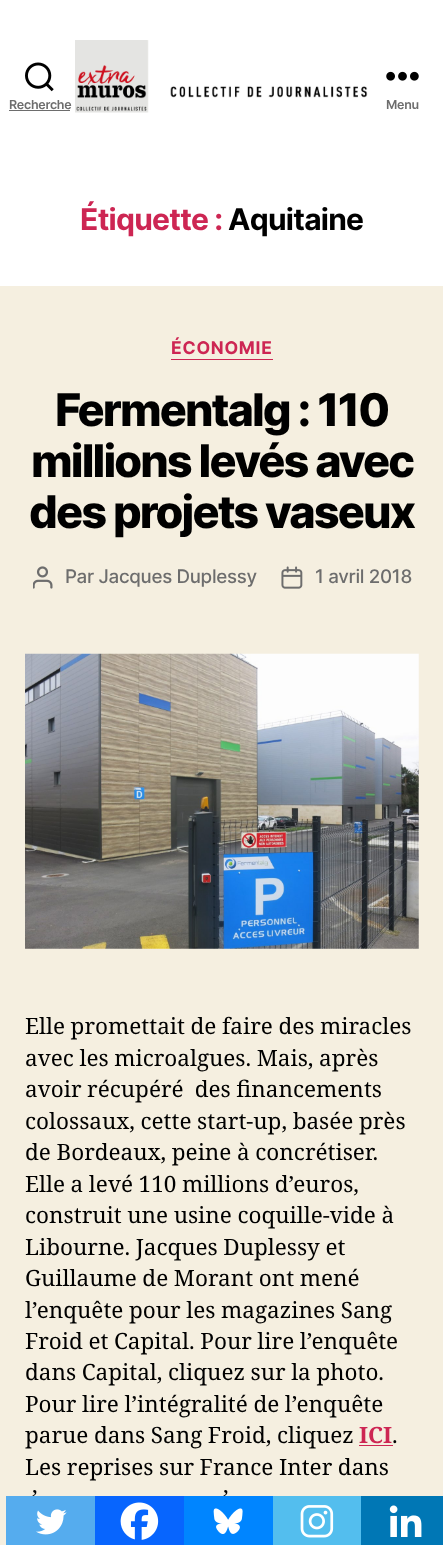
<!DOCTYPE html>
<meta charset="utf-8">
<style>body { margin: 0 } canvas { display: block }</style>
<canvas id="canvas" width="443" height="1545"></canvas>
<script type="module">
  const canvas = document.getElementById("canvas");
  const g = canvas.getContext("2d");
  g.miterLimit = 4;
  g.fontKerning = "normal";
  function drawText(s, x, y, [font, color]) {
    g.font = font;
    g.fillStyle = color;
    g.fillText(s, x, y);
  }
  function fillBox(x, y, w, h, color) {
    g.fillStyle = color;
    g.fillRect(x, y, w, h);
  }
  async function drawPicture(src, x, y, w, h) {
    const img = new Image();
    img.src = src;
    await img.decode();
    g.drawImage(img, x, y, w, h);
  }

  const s1 = ["600 12.5px Inter", "#6D6D6D"];
  const s2 = ["bold 30px Inter", "#CD2653"];
  const s3 = ["bold 30px Inter", "#000000"];
  const s4 = ["bold 17.5px Inter", "#CD2653"];
  const s5 = ["800 45px Inter", "#000000"];
  const s6 = ["500 18.75px Inter", "#6D6D6D"];
  const s7 = ["22.5px Noto Serif", "#000000"];
  const s8 = ["bold 22.5px Noto Serif", "#CD2653"];

  fillBox(0, 0, 443, 1545, "#F5EFE0");
  fillBox(0, 0, 443, 286, "#FFFFFF");
  await drawPicture("pic1.png", 25, 62, 29, 30);
  g.letterSpacing = "-0.25px";
  drawText("Recherche", 9, 109, s1);
  fillBox(9, 110, 61, 1, "#6D6D6D");
  await drawPicture("pic2.png", 75, 40, 293, 73);
  await drawPicture("pic3.png", 386, 71, 33, 10);
  drawText("Menu", 386, 109, s1);
  g.letterSpacing = "-0.75px";
  drawText("Étiquette :", 80, 230, s2);
  drawText("Aquitaine", 228, 230, s3);
  fillBox(171, 359, 102, 1, "#CD2653");
  g.letterSpacing = "0.75px";
  drawText("ÉCONOMIE", 171, 354, s4);
  g.letterSpacing = "-1.9px";
  drawText("Fermentalg : 110", 55, 426, s5);
  drawText("millions levés avec", 31, 477, s5);
  drawText("des projets vaseux", 29, 528, s5);
  await drawPicture("pic4.png", 33, 566, 20, 23);
  g.letterSpacing = "-0.3px";
  drawText("Par Jacques Duplessy", 65, 583, s6);
  await drawPicture("pic5.png", 281, 566, 22, 23);
  drawText("1 avril 2018", 315, 583, s6);
  await drawPicture("pic6.png", 25, 653, 394, 296);
  g.letterSpacing = "0px";
  g.wordSpacing = "-0.25px";
  drawText("Elle promettait de faire des miracles", 25, 1034, s7);
  drawText("avec les microalgues. Mais, après", 25, 1066, s7);
  drawText("avoir récupéré  des financements", 25, 1097, s7);
  drawText("colossaux, cette start-up, basée près", 25, 1129, s7);
  drawText("de Bordeaux, peine à concrétiser.", 25, 1160, s7);
  drawText("Elle a levé 110 millions d’euros,", 25, 1192, s7);
  drawText("construit une usine coquille-vide à", 25, 1223, s7);
  drawText("Libourne. Jacques Duplessy et", 25, 1255, s7);
  drawText("Guillaume de Morant ont mené", 25, 1286, s7);
  drawText("l’enquête pour les magazines Sang", 25, 1318, s7);
  drawText("Froid et Capital. Pour lire l’enquête", 25, 1349, s7);
  drawText("dans Capital, cliquez sur la photo.", 25, 1380, s7);
  drawText("Pour lire l’intégralité de l’enquête", 25, 1412, s7);
  drawText("parue dans Sang Froid, cliquez", 25, 1443, s7);
  g.wordSpacing = "0px";
  drawText("ICI", 359, 1443, s8);
  fillBox(359, 1445, 34, 1, "#CD2653");
  drawText(".", 392, 1443, s7);
  g.wordSpacing = "-0.25px";
  drawText("Les reprises sur France Inter dans", 25, 1475, s7);
  drawText("’", 32, 1506, s7);
  drawText("’", 223, 1506, s7);
  fillBox(6, 1496, 89, 49, "#55ACEE");
  await drawPicture("pic7.png", 36, 1509, 31, 26);
  fillBox(95, 1496, 89, 49, "#0765FE");
  await drawPicture("pic8.png", 120, 1502, 39, 38);
  fillBox(184, 1496, 89, 49, "#0085FF");
  await drawPicture("pic9.png", 213, 1508, 30, 26);
  fillBox(273, 1496, 88, 49, "#53BEEE");
  await drawPicture("pic10.png", 300, 1505, 34, 33);
  fillBox(361, 1496, 82, 49, "#0077B5");
  await drawPicture("pic11.png", 389, 1505, 33, 32);
</script>
